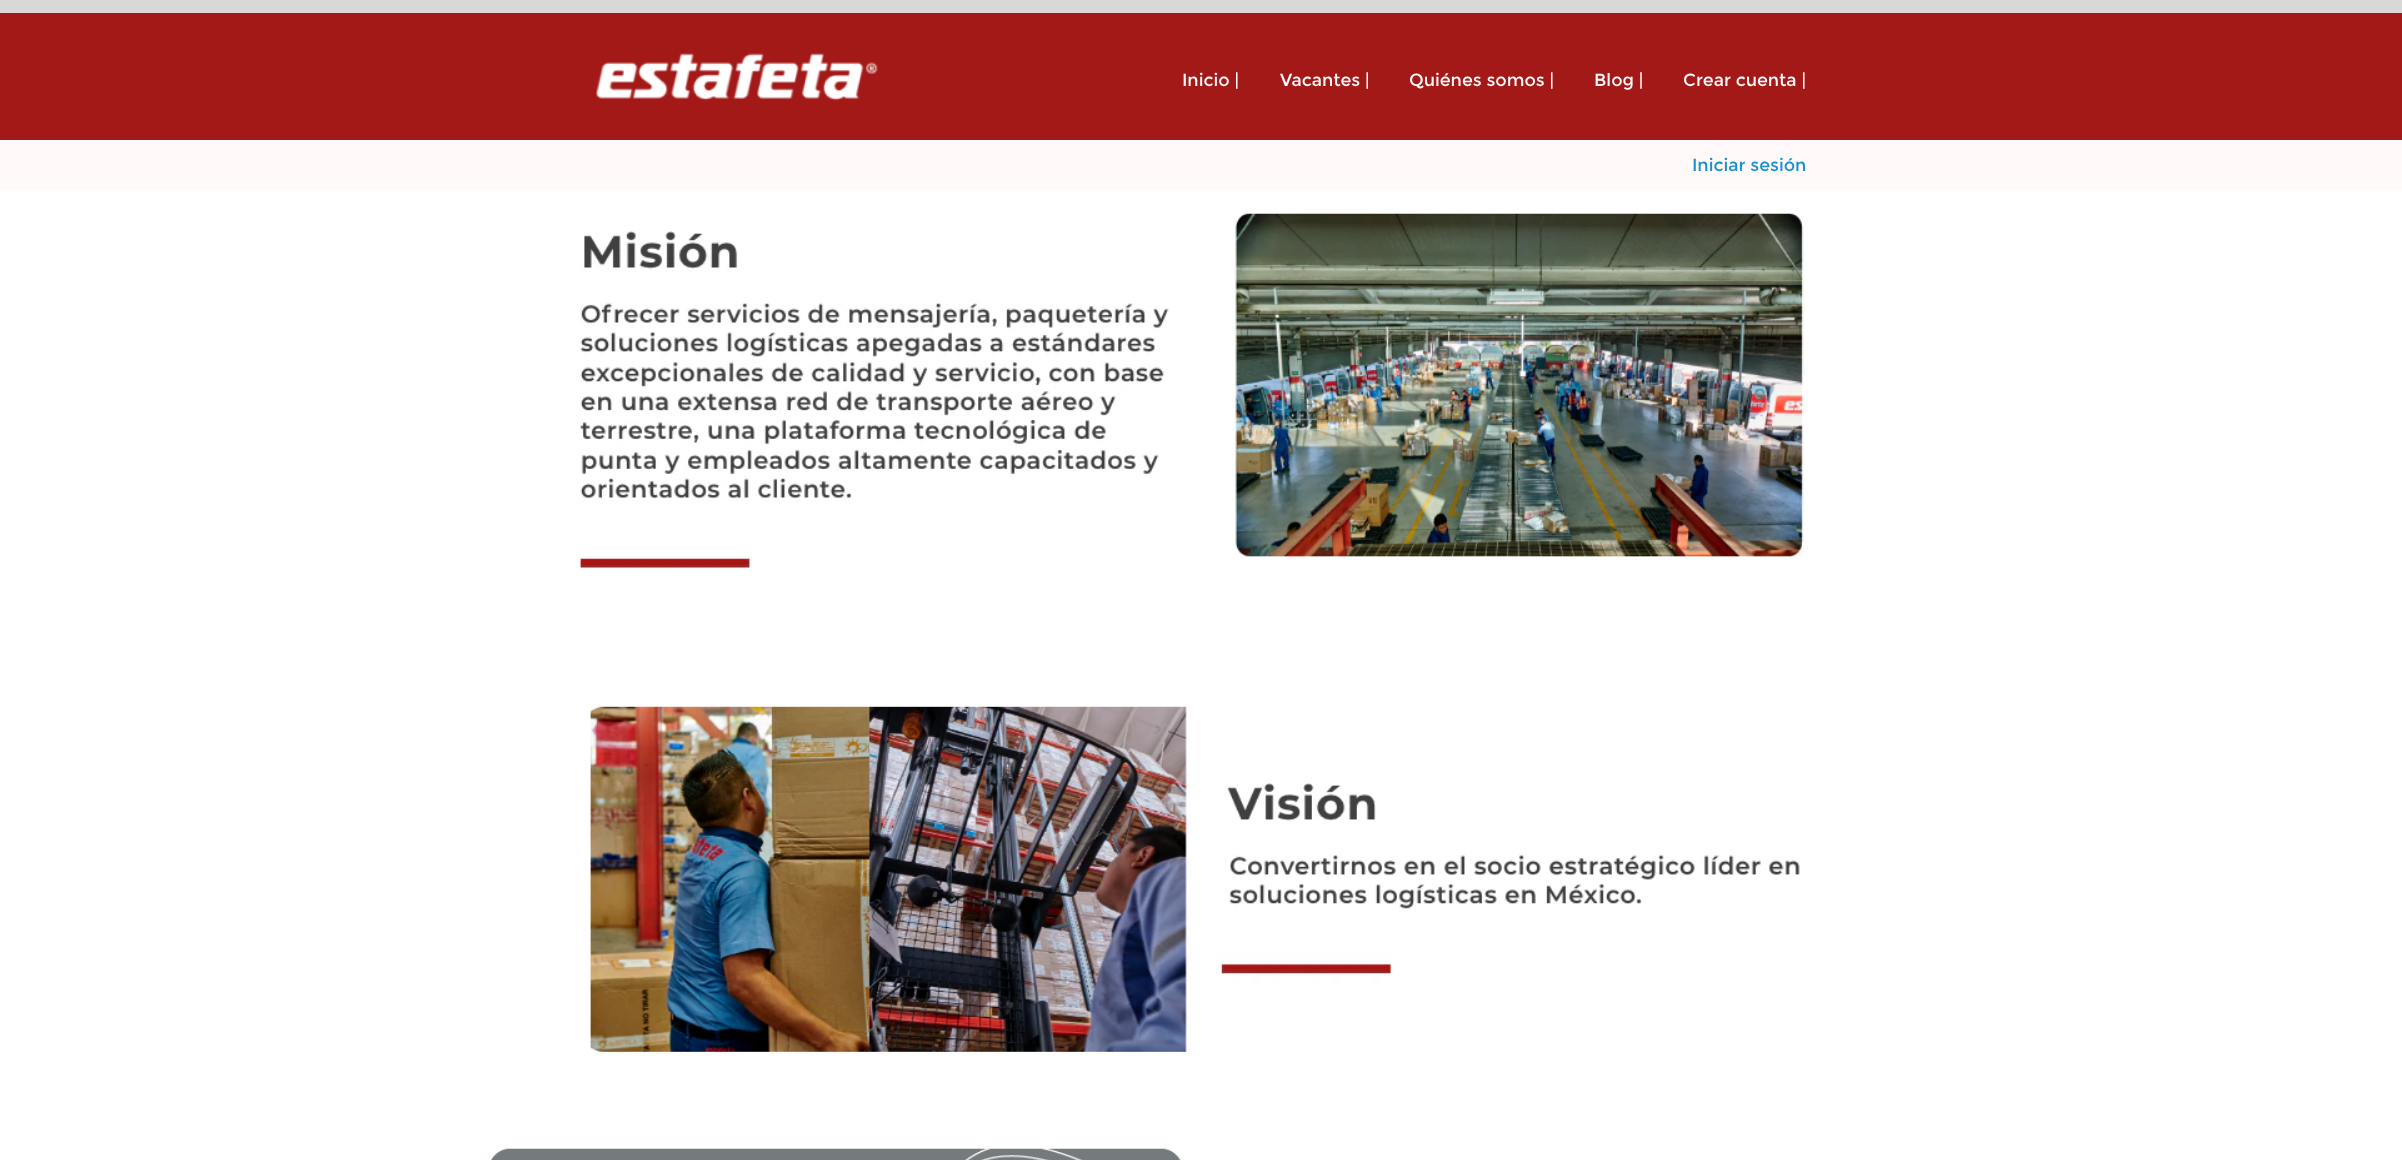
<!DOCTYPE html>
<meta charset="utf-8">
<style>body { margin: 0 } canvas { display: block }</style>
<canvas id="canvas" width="2402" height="1160"></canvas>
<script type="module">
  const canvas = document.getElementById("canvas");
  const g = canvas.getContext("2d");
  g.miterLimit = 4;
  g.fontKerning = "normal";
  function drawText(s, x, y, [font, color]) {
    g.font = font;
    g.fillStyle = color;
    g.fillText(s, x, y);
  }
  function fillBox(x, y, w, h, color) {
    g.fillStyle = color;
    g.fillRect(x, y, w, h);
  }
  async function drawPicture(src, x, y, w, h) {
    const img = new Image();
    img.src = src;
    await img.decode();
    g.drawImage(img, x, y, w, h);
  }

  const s1 = ["17.5px Montserrat", "#FFF9F9"];
  const s2 = ["17.5px Montserrat", "#1890CC"];

  fillBox(0, 0, 2402, 1160, "#FFFFFF");
  fillBox(0, 13, 2402, 127, "#A31918");
  fillBox(0, 0, 2402, 13, "#D8D8D8");
  await drawPicture("pic1.png", 596, 53, 282, 48);
  drawText("Inicio |", 1182, 86, s1);
  drawText("Vacantes |", 1280, 86, s1);
  drawText("Quiénes somos |", 1409, 86, s1);
  drawText("Blog |", 1594, 86, s1);
  drawText("Crear cuenta |", 1683, 86, s1);
  fillBox(0, 140, 2402, 50, "#FFF9F9");
  drawText("Iniciar sesión", 1692, 171, s2);
  await drawPicture("pic2.png", 579, 212, 1231, 359);
  await drawPicture("pic3.png", 589, 704, 1211, 351);
  await drawPicture("pic4.png", 491, 1148, 690, 12);
</script>
